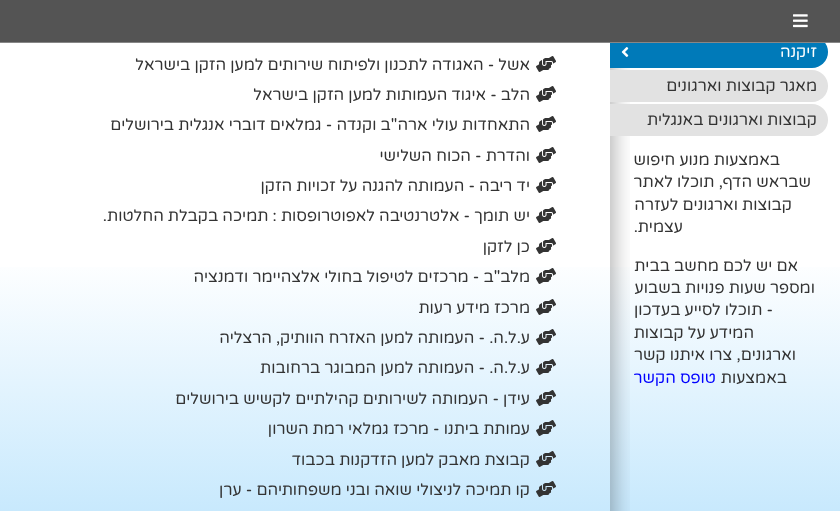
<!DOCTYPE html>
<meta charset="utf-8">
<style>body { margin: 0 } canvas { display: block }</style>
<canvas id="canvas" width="840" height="511"></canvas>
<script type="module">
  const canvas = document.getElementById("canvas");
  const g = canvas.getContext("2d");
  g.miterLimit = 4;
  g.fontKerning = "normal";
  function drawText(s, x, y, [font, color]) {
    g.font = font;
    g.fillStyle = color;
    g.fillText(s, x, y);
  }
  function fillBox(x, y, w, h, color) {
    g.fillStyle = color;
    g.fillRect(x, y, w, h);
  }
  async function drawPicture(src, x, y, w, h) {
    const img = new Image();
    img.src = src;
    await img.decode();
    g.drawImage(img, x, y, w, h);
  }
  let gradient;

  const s1 = ["16px Varela Round", "#FFFFFF"];
  const s2 = ["16px Varela Round", "#333333"];
  const s3 = ["16px Varela Round", "#0000FF"];

  fillBox(0, 0, 840, 511, "#FFFFFF");
  gradient = g.createLinearGradient(420, 0, 420, 511);
  gradient.addColorStop(0, "#FFFFFF");
  gradient.addColorStop(0.5, "#FFFFFF");
  gradient.addColorStop(1, "#C8E9FD");
  g.fillStyle = gradient;
  g.fillRect(0, 267, 840, 244);
  g.save();
  g.beginPath();
  g.rect(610, 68, 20, 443);
  g.clip();
  g.fillStyle = "rgba(0, 0, 0, 0.3)";
  g.filter = "blur(10.5px)";
  g.beginPath();
  g.rect(60, -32, 554, 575);
  g.fill();
  g.filter = "none";
  g.restore();
  g.fillStyle = "#007AB9";
  g.beginPath();
  g.roundRect(610, 36, 218, 32, [0, 16, 16, 0]);
  g.fill();
  fillBox(0, 0, 840, 42, "#545454");
  fillBox(0, 42, 840, 1, "#878787");
  await drawPicture("pic1.png", 793, 14, 15, 14);
  g.direction = "rtl";
  drawText("זיקנה", 817, 57, s1);
  await drawPicture("pic2.png", 621, 47, 8, 10);
  g.fillStyle = "#E2E2E2";
  g.beginPath();
  g.roundRect(610, 70, 218, 32, [0, 16, 16, 0]);
  g.fill();
  drawText("מאגר קבוצות וארגונים", 817, 91, s2);
  g.fillStyle = "#E2E2E2";
  g.beginPath();
  g.roundRect(610, 104, 218, 32, [0, 16, 16, 0]);
  g.fill();
  drawText("קבוצות וארגונים באנגלית", 817, 125, s2);
  drawText("באמצעות מנוע חיפוש", 780, 165, s2);
  drawText("שבראש הדף, תוכלו לאתר", 811, 187, s2);
  drawText("קבוצות וארגונים לעזרה", 792, 210, s2);
  drawText("עצמית.", 683, 232, s2);
  drawText("אם יש לכם מחשב בבית", 798, 271, s2);
  drawText("ומספר שעות פנויות בשבוע", 815, 293, s2);
  drawText("- תוכלו לסייע בעדכון", 773, 315, s2);
  drawText("המידע על קבוצות", 754, 338, s2);
  drawText("וארגונים, צרו איתנו קשר", 796, 360, s2);
  drawText("באמצעות", 787, 383, s2);
  drawText("טופס הקשר", 716, 383, s3);
  await drawPicture("pic3.png", 536, 56, 20, 16);
  drawText("אשל - האגודה לתכנון ולפיתוח שירותים למען הזקן בישראל", 530, 70, s2);
  await drawPicture("pic3.png", 536, 86, 20, 16);
  drawText("הלב - איגוד העמותות למען הזקן בישראל", 530, 100, s2);
  await drawPicture("pic3.png", 536, 116, 20, 16);
  drawText("התאחדות עולי ארה\"ב וקנדה - גמלאים דוברי אנגלית בירושלים", 530, 130, s2);
  await drawPicture("pic3.png", 536, 147, 20, 16);
  drawText("והדרת - הכוח השלישי", 530, 161, s2);
  await drawPicture("pic3.png", 536, 177, 20, 16);
  drawText("יד ריבה - העמותה להגנה על זכויות הזקן", 530, 191, s2);
  await drawPicture("pic3.png", 536, 207, 20, 16);
  drawText("יש תומך - אלטרנטיבה לאפוטרופסות : תמיכה בקבלת החלטות.", 530, 221, s2);
  await drawPicture("pic3.png", 536, 238, 20, 16);
  drawText("כן לזקן", 530, 252, s2);
  await drawPicture("pic4.png", 536, 268, 20, 16);
  drawText("מלב\"ב - מרכזים לטיפול בחולי אלצהיימר ודמנציה", 530, 282, s2);
  await drawPicture("pic5.png", 536, 299, 20, 16);
  drawText("מרכז מידע רעות", 530, 313, s2);
  await drawPicture("pic6.png", 536, 329, 20, 16);
  drawText("ע.ל.ה. - העמותה למען האזרח הוותיק, הרצליה", 530, 343, s2);
  await drawPicture("pic7.png", 536, 359, 20, 16);
  drawText("ע.ל.ה. - העמותה למען המבוגר ברחובות", 530, 373, s2);
  await drawPicture("pic8.png", 536, 390, 20, 16);
  drawText("עידן - העמותה לשירותים קהילתיים לקשיש בירושלים", 530, 404, s2);
  await drawPicture("pic9.png", 536, 420, 20, 16);
  drawText("עמותת ביתנו - מרכז גמלאי רמת השרון", 530, 434, s2);
  await drawPicture("pic10.png", 536, 451, 20, 16);
  drawText("קבוצת מאבק למען הזדקנות בכבוד", 530, 465, s2);
  await drawPicture("pic11.png", 536, 481, 20, 16);
  drawText("קו תמיכה לניצולי שואה ובני משפחותיהם - ערן", 530, 495, s2);
</script>
